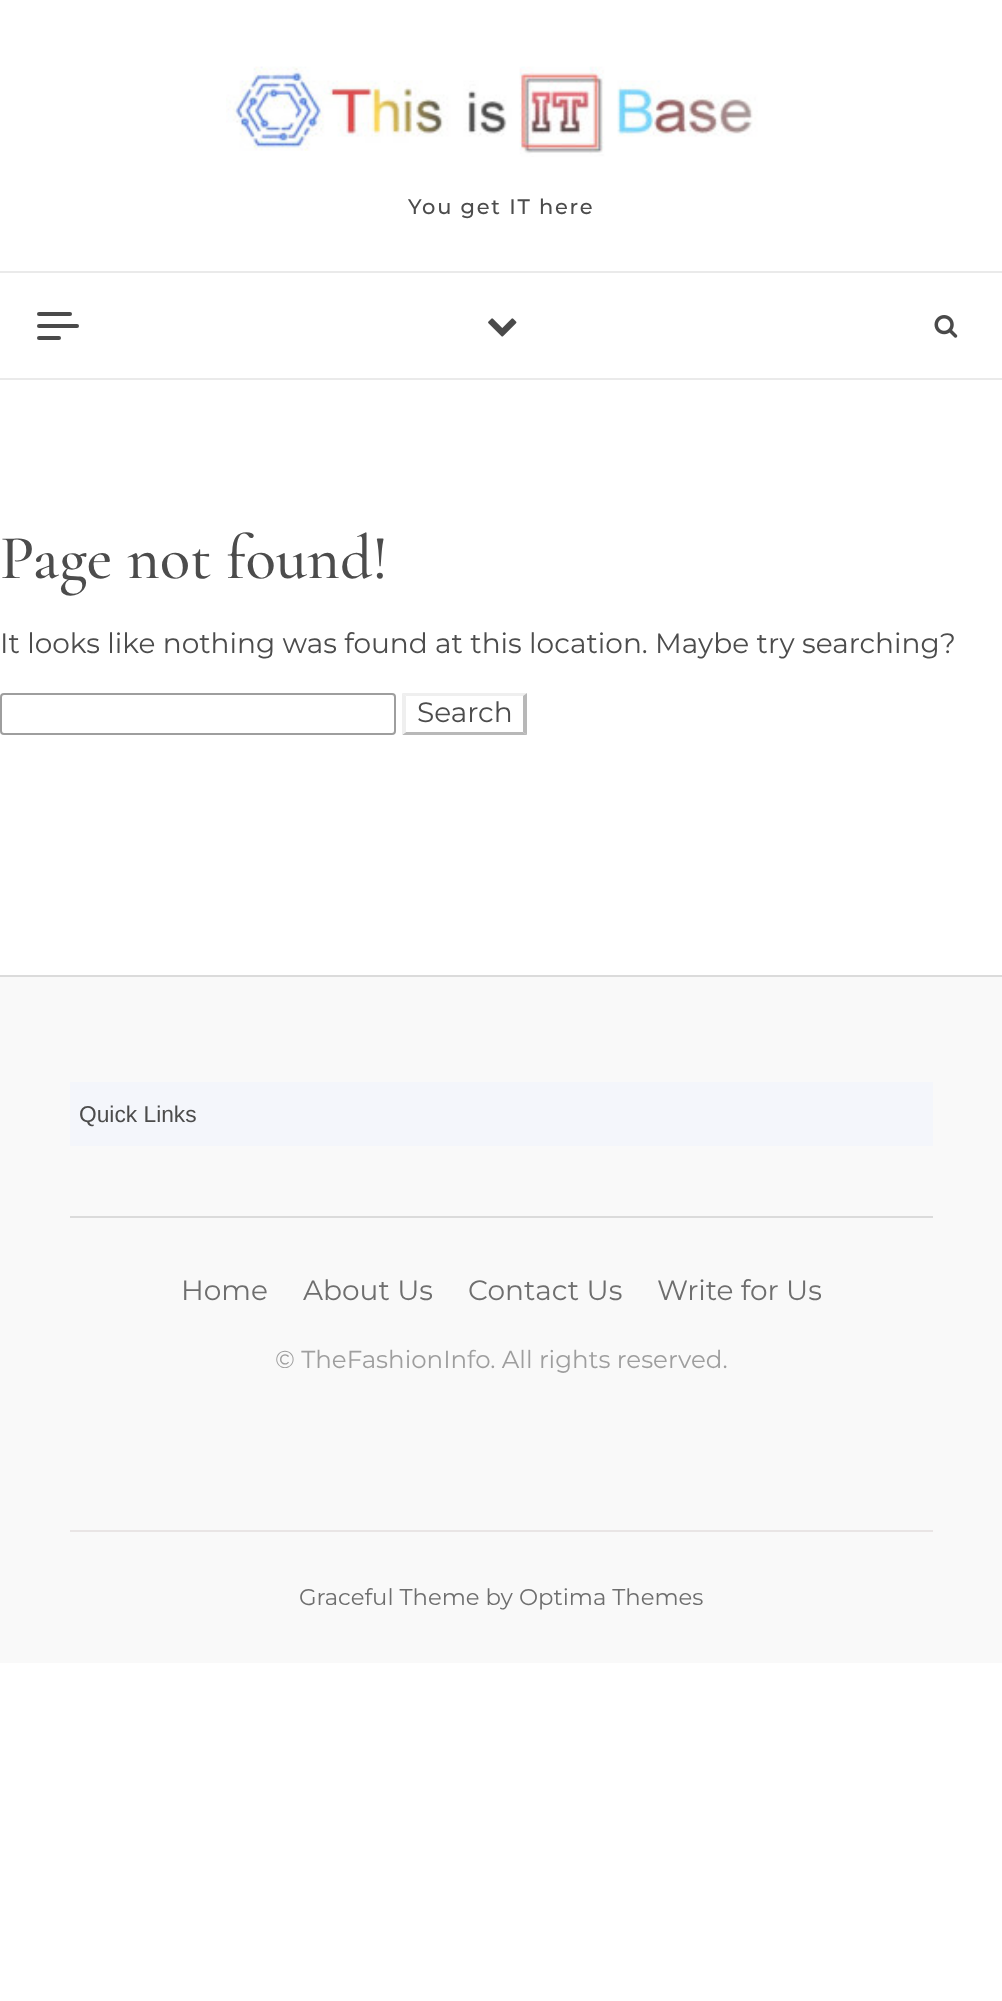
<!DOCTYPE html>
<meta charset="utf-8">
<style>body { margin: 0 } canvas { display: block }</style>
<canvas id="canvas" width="1002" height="2001"></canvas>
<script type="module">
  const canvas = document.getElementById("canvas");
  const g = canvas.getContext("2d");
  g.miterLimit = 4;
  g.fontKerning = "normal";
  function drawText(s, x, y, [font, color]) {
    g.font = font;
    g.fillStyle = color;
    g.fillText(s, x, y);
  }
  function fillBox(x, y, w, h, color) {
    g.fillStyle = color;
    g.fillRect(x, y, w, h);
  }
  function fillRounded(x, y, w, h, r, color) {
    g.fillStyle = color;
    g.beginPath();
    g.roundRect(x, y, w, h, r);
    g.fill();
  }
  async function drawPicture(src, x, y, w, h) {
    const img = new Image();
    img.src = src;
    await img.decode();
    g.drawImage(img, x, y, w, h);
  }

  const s1 = ["100 21px 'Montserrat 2'", "#4C4C4C"];
  const s2 = ["500 63px Cormorant Garamond", "#4C4C4C"];
  const s3 = ["100 28px Montserrat", "#4C4C4C"];
  const s4 = ["22.75px Liberation Sans", "#4C4C4C"];
  const s5 = ["100 28px Montserrat", "#6E6E6E"];
  const s6 = ["100 24.5px Montserrat", "#9E9E9E"];
  const s7 = ["100 22.75px Montserrat", "#6E6E6E"];

  fillBox(0, 0, 1002, 2001, "#FFFFFF");
  fillBox(0, 271, 1002, 2, "#EAEAEA");
  await drawPicture("pic1.png", 226, 66, 532, 91);
  g.letterSpacing = "1.75px";
  drawText("You get IT here", 408, 214, s1);
  fillBox(0, 378, 1002, 2, "#EAEAEA");
  fillRounded(37, 312, 35, 4, 2, "#4A4A4A");
  fillRounded(37, 324, 42, 4, 2, "#4A4A4A");
  fillRounded(37, 336, 24, 4, 2, "#4A4A4A");
  await drawPicture("pic2.png", 488, 318, 29, 19);
  await drawPicture("pic3.png", 934, 315, 24, 23);
  g.letterSpacing = "0px";
  drawText("Page not found!", 0, 578, s2);
  drawText("It looks like nothing was found at this location. Maybe try searching?", 0, 653, s3);
  g.beginPath();
  g.roundRect(1, 694, 394, 40, 3);
  g.strokeStyle = "#9E9E9E";
  g.lineWidth = 2;
  g.stroke();
  g.fillStyle = "#EFEFEF";
  g.beginPath();
  g.moveTo(402, 693);
  g.lineTo(527, 693);
  g.lineTo(523, 696);
  g.lineTo(406, 696);
  g.closePath();
  g.fill();
  g.fillStyle = "#B8B8B8";
  g.beginPath();
  g.moveTo(527, 693);
  g.lineTo(527, 735);
  g.lineTo(523, 732);
  g.lineTo(523, 696);
  g.closePath();
  g.fill();
  g.beginPath();
  g.moveTo(527, 735);
  g.lineTo(402, 735);
  g.lineTo(406, 732);
  g.lineTo(523, 732);
  g.closePath();
  g.fill();
  g.fillStyle = "#EFEFEF";
  g.beginPath();
  g.moveTo(402, 735);
  g.lineTo(402, 693);
  g.lineTo(406, 696);
  g.lineTo(406, 732);
  g.closePath();
  g.fill();
  drawText("Search", 417, 722, s3);
  fillBox(0, 977, 1002, 686, "#F9F9F9");
  fillBox(0, 975, 1002, 2, "#DBDBDB");
  fillBox(70, 1530, 863, 2, "#E9E5E5");
  fillBox(70, 1082, 863, 64, "#F4F6FB");
  drawText("Quick Links", 79, 1122, s4);
  fillBox(70, 1216, 863, 2, "#DBDBDB");
  drawText("Home", 181, 1300, s5);
  drawText("About Us", 303, 1300, s5);
  drawText("Contact Us", 468, 1300, s5);
  drawText("Write for Us", 657, 1300, s5);
  drawText("© TheFashionInfo. All rights reserved.", 275, 1368, s6);
  drawText("Graceful Theme by Optima Themes", 299, 1605, s7);
</script>
